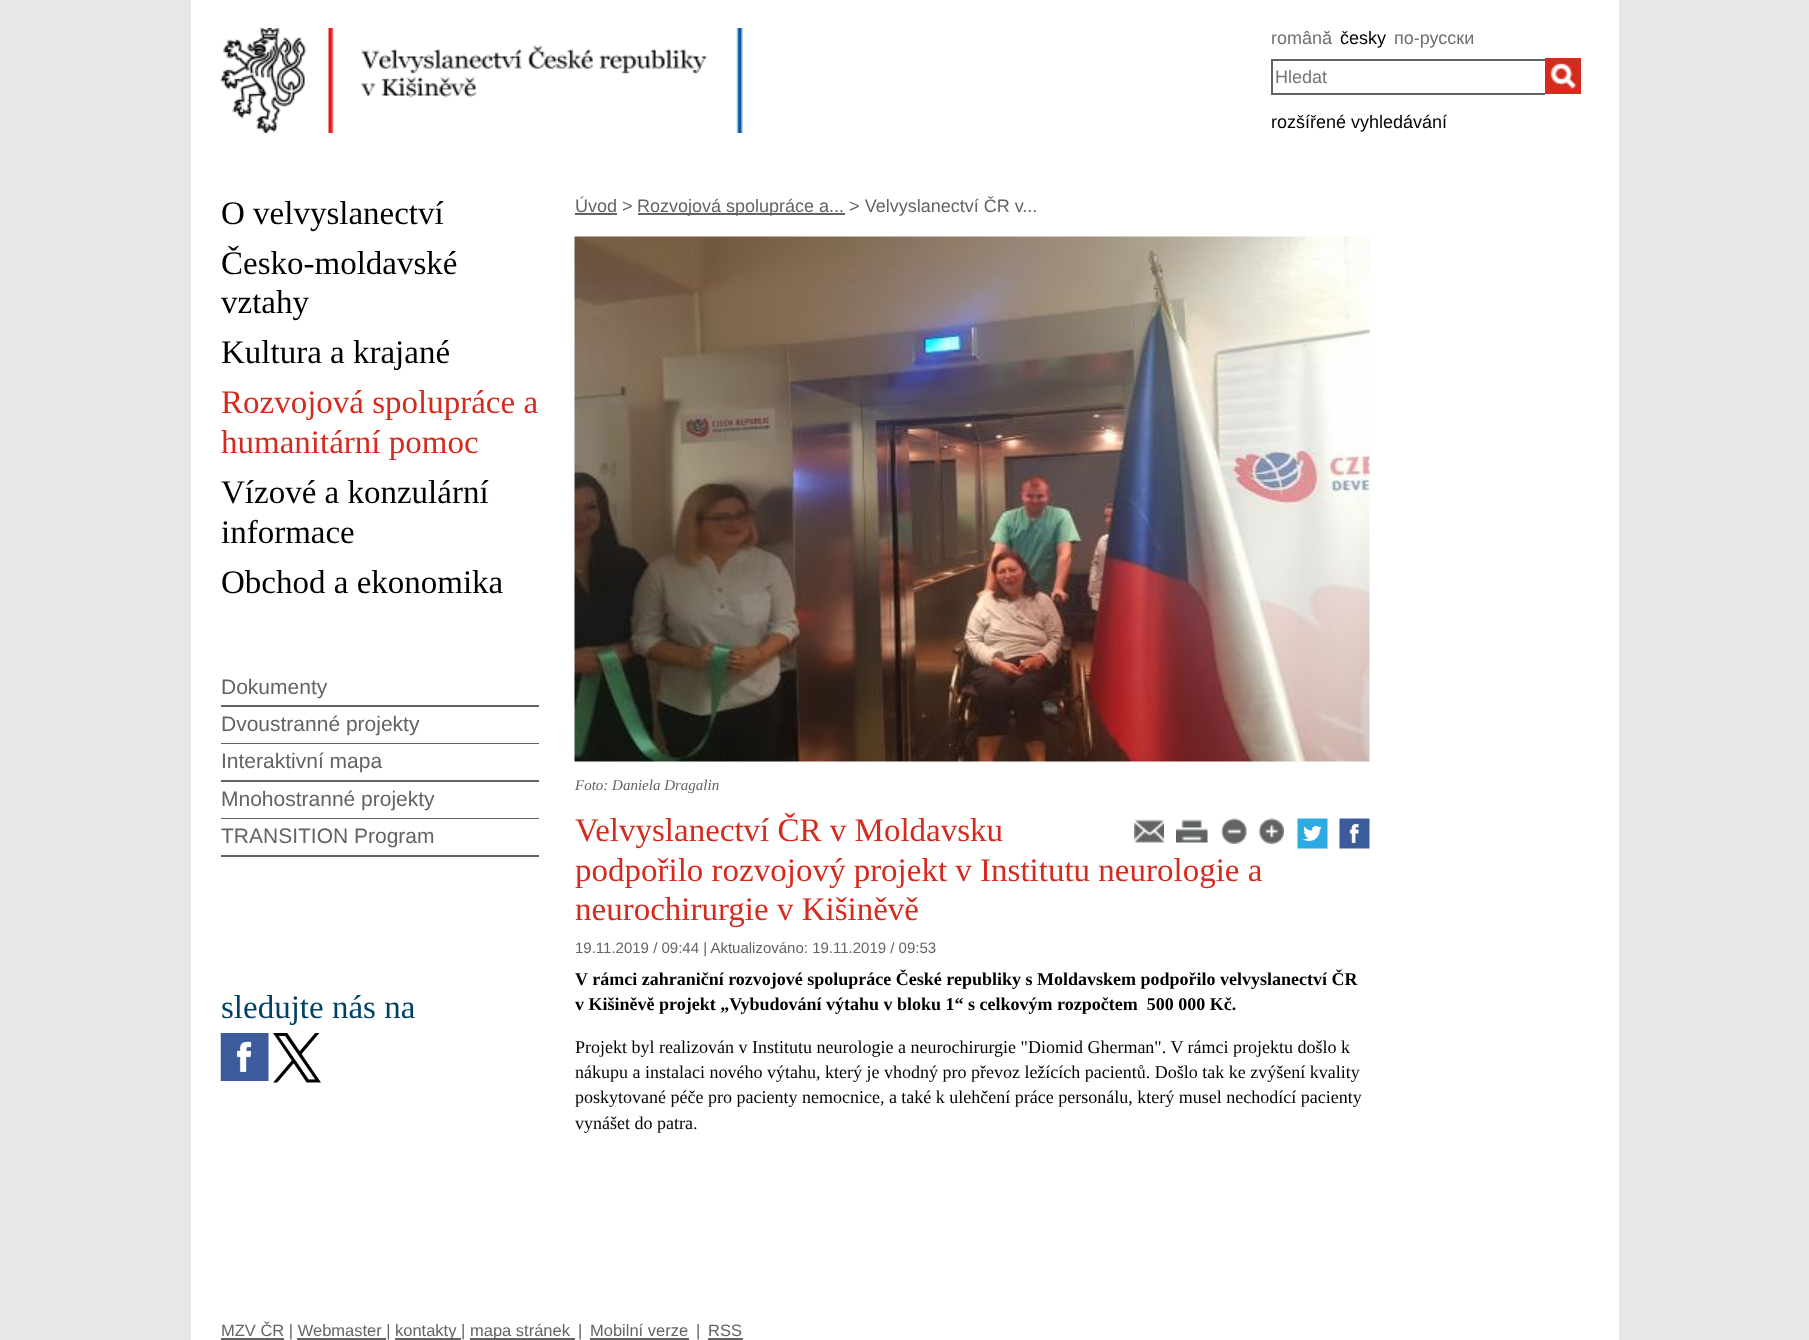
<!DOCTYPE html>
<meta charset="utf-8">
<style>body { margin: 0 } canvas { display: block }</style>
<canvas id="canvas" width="1809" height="1340"></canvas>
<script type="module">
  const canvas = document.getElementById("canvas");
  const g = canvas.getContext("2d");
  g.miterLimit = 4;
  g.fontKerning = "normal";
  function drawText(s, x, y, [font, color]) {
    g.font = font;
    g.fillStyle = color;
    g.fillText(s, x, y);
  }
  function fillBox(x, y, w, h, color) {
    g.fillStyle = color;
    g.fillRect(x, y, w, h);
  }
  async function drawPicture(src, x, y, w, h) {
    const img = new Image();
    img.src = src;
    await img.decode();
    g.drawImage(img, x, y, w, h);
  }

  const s1 = ["18px Liberation Sans", "#6D6F72"];
  const s2 = ["18px Liberation Sans", "#000000"];
  const s3 = ["18px Liberation Sans", "#757575"];
  const s4 = ["33px Liberation Serif", "#000000"];
  const s5 = ["33px Liberation Serif", "#D52B1E"];
  const s6 = ["18px Liberation Sans", "#616365"];
  const s7 = ["italic 15px Liberation Serif", "#616365"];
  const s8 = ["15px Liberation Sans", "#616365"];
  const s9 = ["bold 18px Liberation Serif", "#000000"];
  const s10 = ["18px Liberation Serif", "#000000"];
  const s11 = ["21px Liberation Sans", "#616365"];
  const s12 = ["33px Liberation Serif", "#004165"];
  const s13 = ["16.5px Liberation Sans", "#616365"];

  fillBox(0, 0, 1809, 1340, "#E7E7E7");
  fillBox(191, 0, 1428, 1340, "#FFFFFF");
  await drawPicture("pic1.png", 220, 28, 523, 105);
  drawText("română", 1271, 44, s1);
  drawText("česky", 1340, 44, s2);
  drawText("по-русски", 1394, 44, s1);
  fillBox(1271, 59, 274, 2, "#616365");
  fillBox(1271, 93, 274, 2, "#616365");
  fillBox(1271, 59, 2, 36, "#616365");
  drawText("Hledat", 1275, 83, s3);
  await drawPicture("pic2.png", 1545, 58, 36, 36);
  drawText("rozšířené vyhledávání", 1271, 128, s2);
  drawText("O velvyslanectví", 221, 224, s4);
  drawText("Česko-moldavské", 221, 274, s4);
  drawText("vztahy", 221, 313, s4);
  drawText("Kultura a krajané", 221, 363, s4);
  drawText("Rozvojová spolupráce a", 221, 413, s5);
  drawText("humanitární pomoc", 221, 453, s5);
  drawText("Vízové a konzulární", 221, 503, s4);
  drawText("informace", 221, 543, s4);
  drawText("Obchod a ekonomika", 221, 593, s4);
  drawText("Úvod >", 575, 212, s6);
  fillBox(575, 213, 42, 2, "#616365");
  fillBox(638, 213, 207, 2, "#616365");
  drawText("Rozvojová spolupráce a... > Velvyslanectví ČR v...", 637, 212, s6);
  await drawPicture("pic3.png", 574, 236, 796, 526);
  drawText("Foto: Daniela Dragalin", 575, 790, s7);
  drawText("Velvyslanectví ČR v Moldavsku", 575, 841, s5);
  drawText("podpořilo rozvojový projekt v Institutu neurologie a", 575, 881, s5);
  drawText("neurochirurgie v Kišiněvě", 575, 920, s5);
  drawText("19.11.2019 / 09:44 | Aktualizováno: 19.11.2019 / 09:53", 575, 953, s8);
  drawText("V rámci zahraniční rozvojové spolupráce České republiky s Moldavskem podpořilo velvyslanectví ČR", 575, 985, s9);
  drawText("v Kišiněvě projekt „Vybudování výtahu v bloku 1“ s celkovým rozpočtem  500 000 Kč.", 575, 1010, s9);
  drawText("Projekt byl realizován v Institutu neurologie a neurochirurgie \"Diomid Gherman\". V rámci projektu došlo k", 575, 1053, s10);
  drawText("nákupu a instalaci nového výtahu, který je vhodný pro převoz ležících pacientů. Došlo tak ke zvýšení kvality", 575, 1078, s10);
  drawText("poskytované péče pro pacienty nemocnice, a také k ulehčení práce personálu, který musel nechodící pacienty", 575, 1103, s10);
  drawText("vynášet do patra.", 575, 1129, s10);
  await drawPicture("pic4.png", 1134, 819, 30, 24);
  await drawPicture("pic5.png", 1176, 819, 32, 24);
  await drawPicture("pic6.png", 1221, 818, 26, 26);
  await drawPicture("pic7.png", 1258, 818, 26, 26);
  await drawPicture("pic8.png", 1297, 818, 31, 31);
  await drawPicture("pic9.png", 1339, 818, 31, 31);
  fillBox(221, 705, 318, 2, "#616365");
  drawText("Dokumenty", 221, 694, s11);
  fillBox(221, 743, 318, 1, "#616365");
  drawText("Dvoustranné projekty", 221, 731, s11);
  fillBox(221, 780, 318, 2, "#616365");
  drawText("Interaktivní mapa", 221, 768, s11);
  fillBox(221, 818, 318, 1, "#616365");
  drawText("Mnohostranné projekty", 221, 806, s11);
  fillBox(221, 855, 318, 2, "#616365");
  drawText("TRANSITION Program", 221, 843, s11);
  drawText("sledujte nás na", 221, 1018, s12);
  await drawPicture("pic10.png", 220, 1033, 49, 48);
  await drawPicture("pic11.png", 273, 1033, 48, 50);
  fillBox(221, 1338, 63, 2, "#616365");
  drawText("MZV ČR | Webmaster |", 221, 1336, s13);
  fillBox(395, 1338, 61, 2, "#616365");
  drawText("kontakty |", 395, 1336, s13);
  fillBox(456, 1338, 5, 2, "#616365");
  fillBox(470, 1338, 105, 2, "#616365");
  drawText("mapa stránek", 470, 1336, s13);
  drawText("|", 578, 1336, s13);
  drawText("Mobilní verze", 590, 1336, s13);
  fillBox(590, 1338, 99, 2, "#616365");
  drawText("|", 696, 1336, s13);
  drawText("RSS", 708, 1336, s13);
  fillBox(708, 1338, 35, 2, "#616365");
  fillBox(297, 1338, 89, 2, "#616365");
</script>
